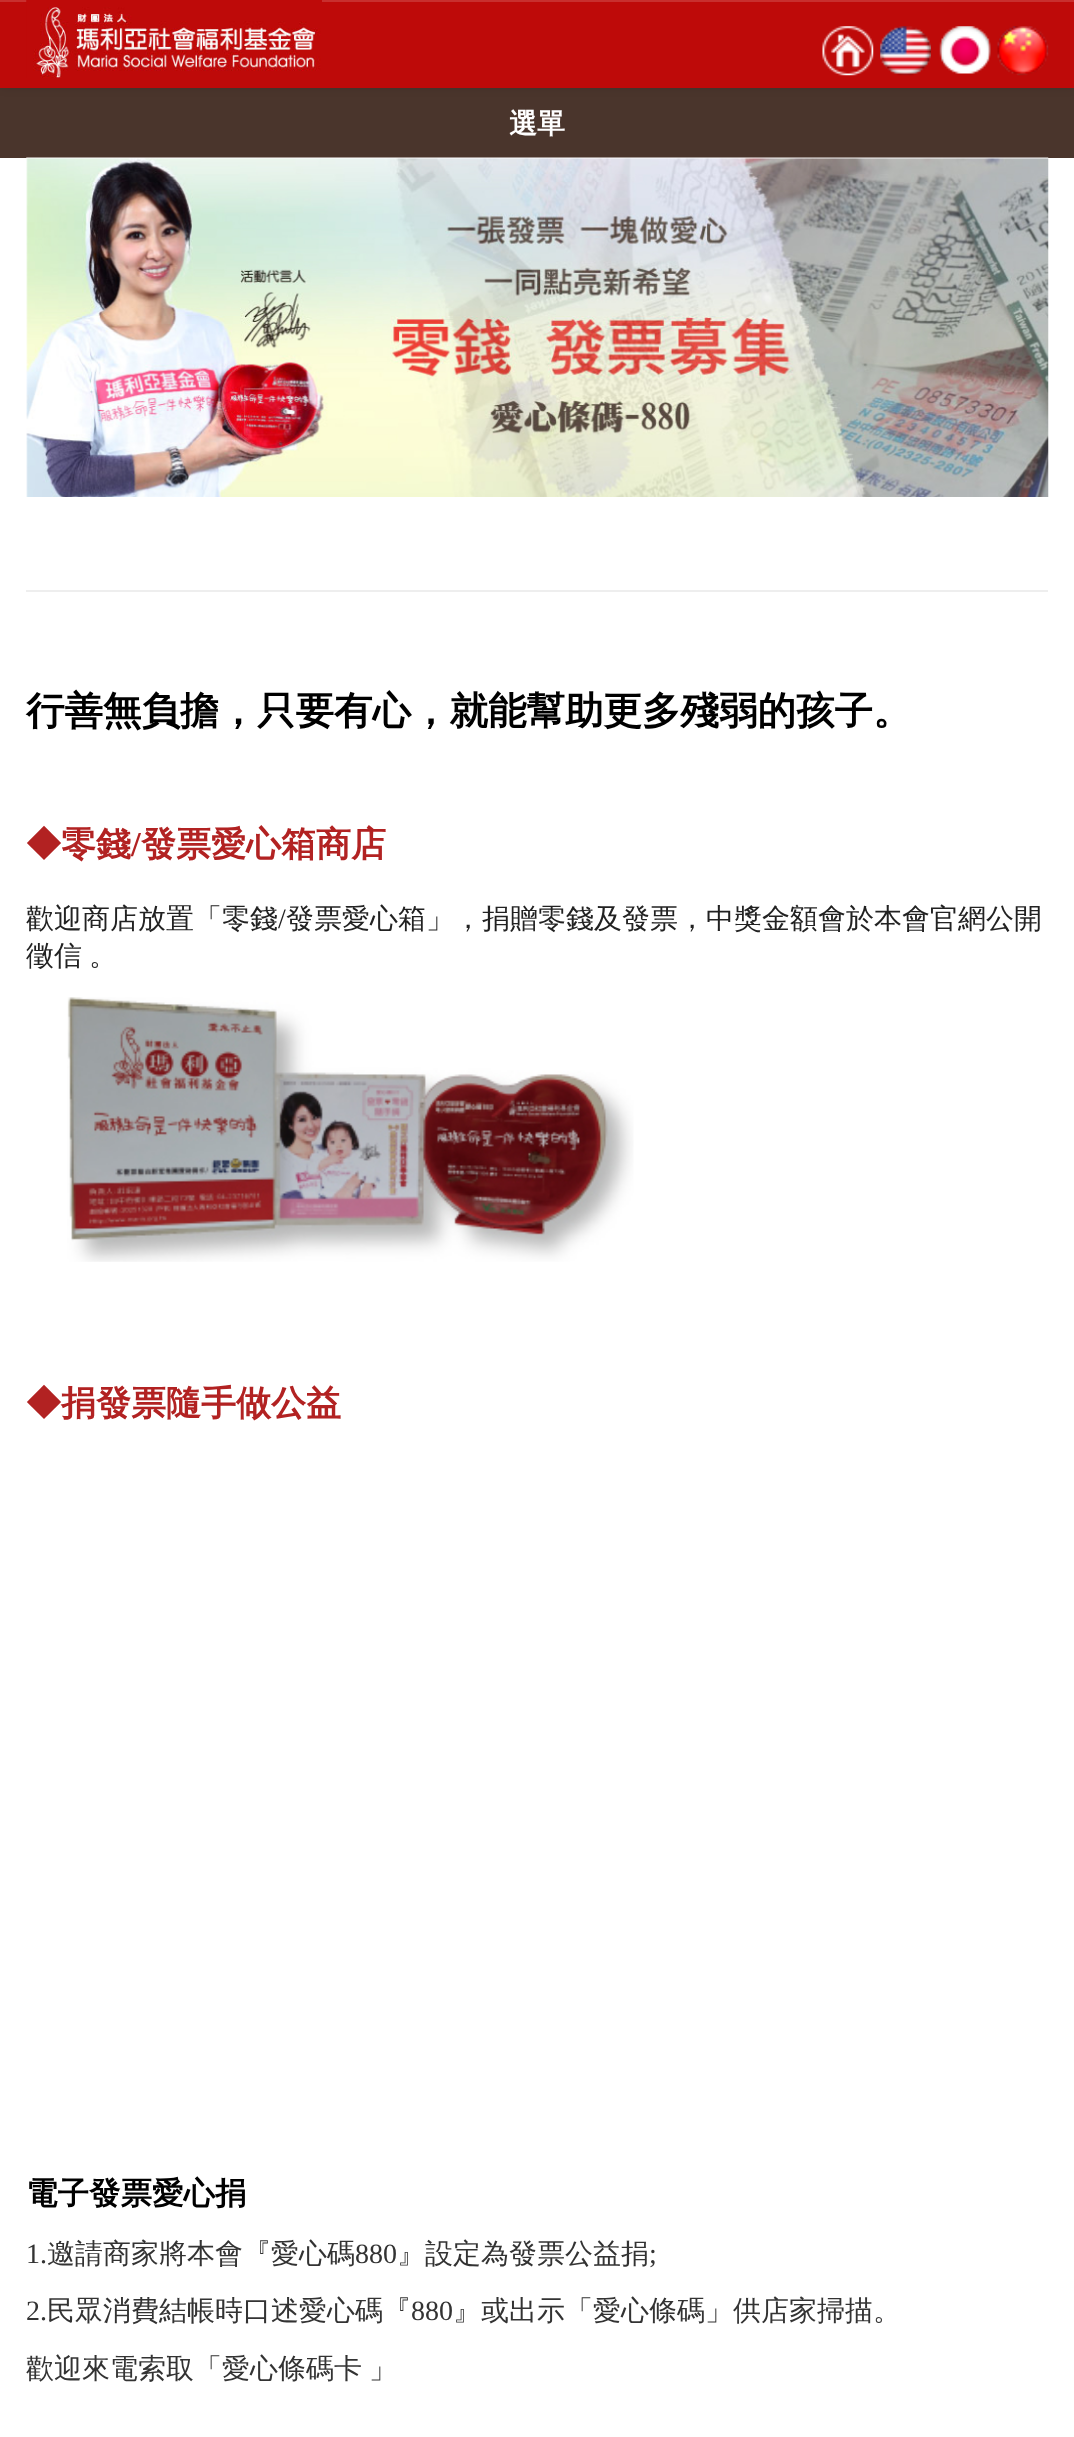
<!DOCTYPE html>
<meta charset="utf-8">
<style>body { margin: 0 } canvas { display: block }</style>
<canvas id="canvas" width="1074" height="2437"></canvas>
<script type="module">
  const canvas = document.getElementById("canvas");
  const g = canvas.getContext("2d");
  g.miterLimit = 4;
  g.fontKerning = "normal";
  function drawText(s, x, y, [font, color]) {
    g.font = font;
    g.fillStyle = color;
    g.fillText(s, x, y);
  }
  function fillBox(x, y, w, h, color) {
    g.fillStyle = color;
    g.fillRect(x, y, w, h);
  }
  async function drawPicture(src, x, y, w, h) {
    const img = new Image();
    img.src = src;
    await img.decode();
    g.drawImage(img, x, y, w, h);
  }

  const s1 = ["bold 28px WenQuanYi Zen Hei", "#FFFFFF"];
  const s2 = ["bold 38.5px WenQuanYi Zen Hei", "#000000"];
  const s3 = ["bold 35px WenQuanYi Zen Hei", "#B22222"];
  const s4 = ["bold 35px Liberation Serif", "#B22222"];
  const s5 = ["500 28px WenQuanYi Zen Hei", "#222222"];
  const s6 = ["28px Liberation Serif", "#222222"];
  const s7 = ["bold 31.5px WenQuanYi Zen Hei", "#000000"];
  const s8 = ["28px Liberation Serif", "#333333"];
  const s9 = ["500 28px WenQuanYi Zen Hei", "#333333"];

  fillBox(0, 0, 1074, 2437, "#FFFFFF");
  fillBox(0, 88, 1074, 70, "#4A352C");
  g.fillStyle = "rgba(0, 0, 0, 0.07)";
  g.filter = "blur(4.5px)";
  g.beginPath();
  g.rect(0, 2, 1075, 87);
  g.fill();
  g.filter = "none";
  fillBox(0, 2, 1074, 86, "#BE0A09");
  fillBox(0, 0, 1074, 2, "#C82F2E");
  await drawPicture("pic1.png", 26, 0, 296, 78);
  await drawPicture("pic2.png", 822, 26, 52, 50);
  await drawPicture("pic3.png", 880, 26, 51, 50);
  await drawPicture("pic4.png", 939, 26, 52, 48);
  await drawPicture("pic5.png", 997, 26, 52, 50);
  drawText("選單", 509, 133, s1);
  await drawPicture("pic6.png", 26, 157, 1023, 340);
  fillBox(26, 590, 1022, 2, "#EEEEEE");
  drawText("行善無負擔，只要有心，就能幫助更多殘弱的孩子。", 26, 724, s2);
  drawText("◆零錢", 26, 856, s3);
  drawText("/", 131, 856, s4);
  drawText("發票愛心箱商店", 141, 856, s3);
  drawText("歡迎商店放置「零錢", 26, 928, s5);
  drawText("/", 278, 928, s6);
  drawText("發票愛心箱」，捐贈零錢及發票，中獎金額會於本會官網公開", 286, 928, s5);
  drawText("徵信", 26, 965, s5);
  drawText("。", 89, 965, s5);
  await drawPicture("pic7.png", 67, 997, 567, 265);
  drawText("◆捐發票隨手做公益", 26, 1415, s3);
  drawText("電子發票愛心捐", 26, 2204, s7);
  drawText("1.", 26, 2263, s8);
  drawText("邀請商家將本會『愛心碼", 47, 2263, s9);
  drawText("880", 355, 2263, s8);
  drawText("』設定為發票公益捐", 397, 2263, s9);
  drawText(";", 649, 2263, s8);
  drawText("2.", 26, 2320, s8);
  drawText("民眾消費結帳時口述愛心碼『", 47, 2320, s9);
  drawText("880", 411, 2320, s8);
  drawText("』或出示「愛心條碼」供店家掃描。", 453, 2320, s9);
  drawText("歡迎來電索取「愛心條碼卡", 26, 2378, s9);
  drawText("」", 369, 2378, s9);
</script>
